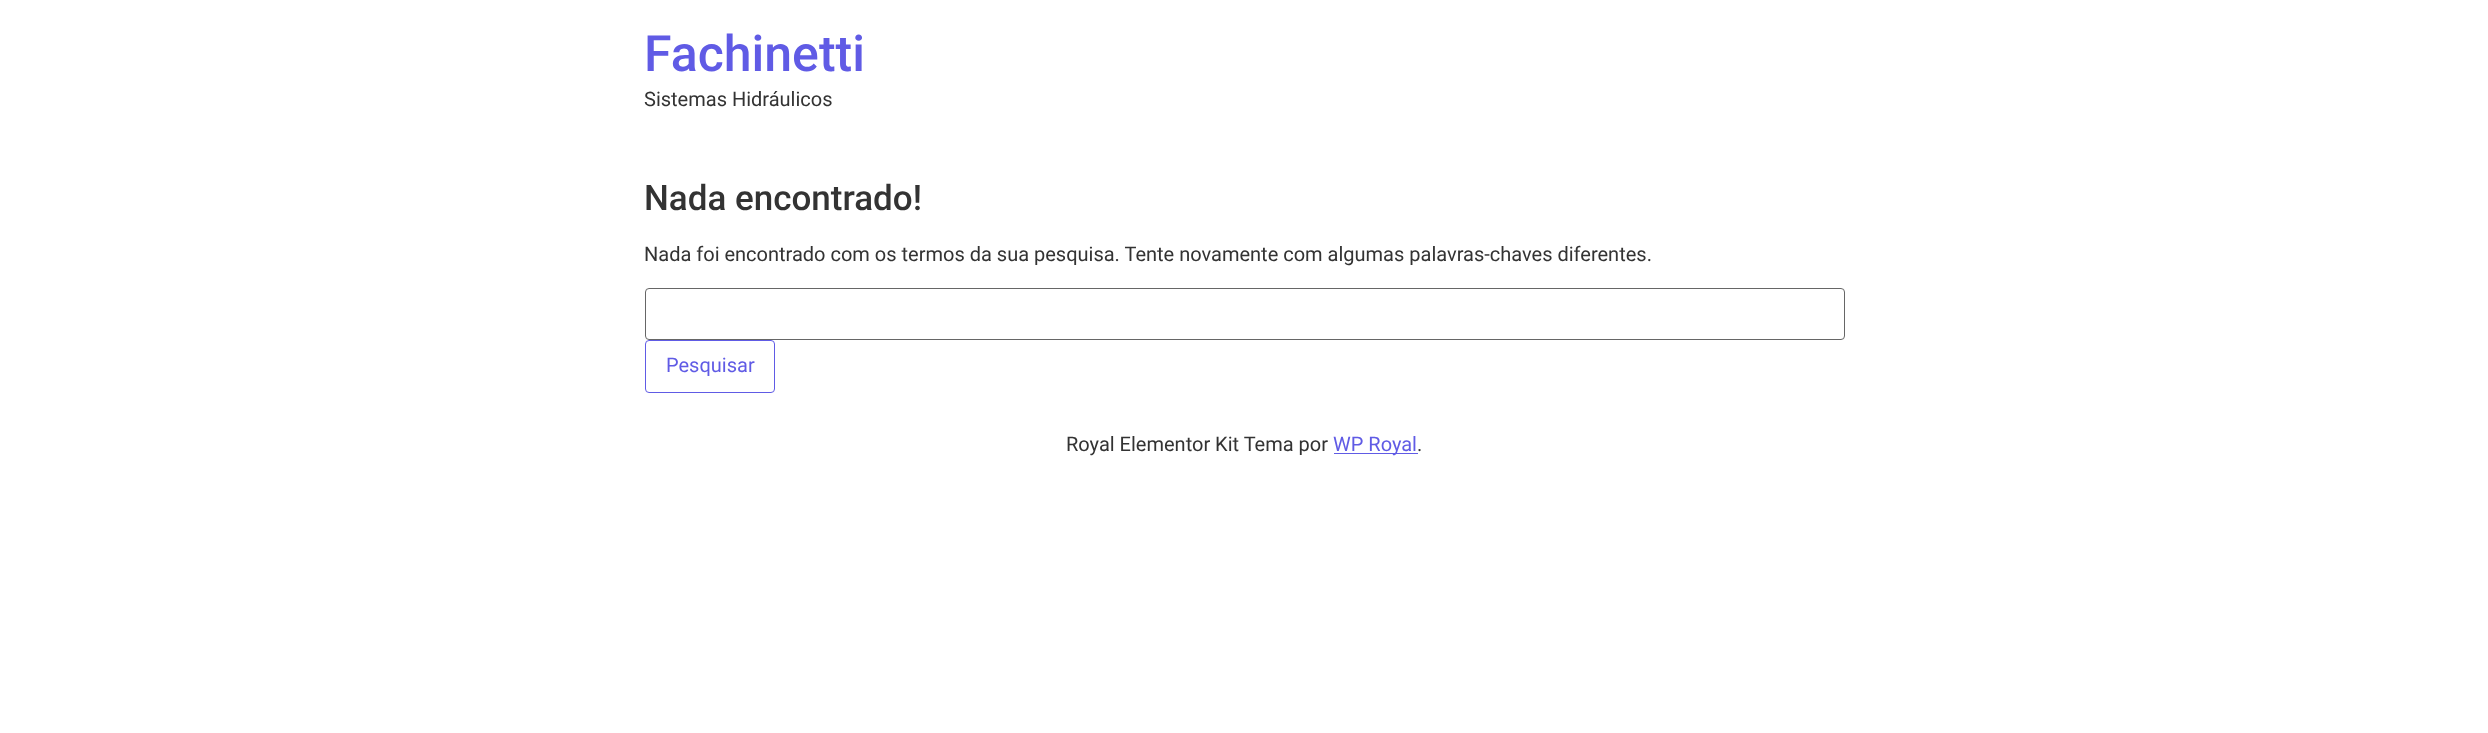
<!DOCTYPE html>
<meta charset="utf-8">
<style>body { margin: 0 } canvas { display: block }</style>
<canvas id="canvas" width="2488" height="733"></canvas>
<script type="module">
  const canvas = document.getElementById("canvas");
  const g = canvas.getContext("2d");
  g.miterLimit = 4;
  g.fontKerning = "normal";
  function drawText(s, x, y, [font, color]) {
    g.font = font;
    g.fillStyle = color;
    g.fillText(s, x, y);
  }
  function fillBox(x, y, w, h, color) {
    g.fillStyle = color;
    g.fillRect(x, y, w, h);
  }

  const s1 = ["500 50px Roboto", "#605BE5"];
  const s2 = ["20px Roboto", "#333333"];
  const s3 = ["500 35px Roboto", "#333333"];
  const s4 = ["20px Roboto", "#605BE5"];

  fillBox(0, 0, 2488, 733, "#FFFFFF");
  drawText("Fachinetti", 644, 71, s1);
  drawText("Sistemas Hidráulicos", 644, 106, s2);
  drawText("Nada encontrado!", 644, 210, s3);
  drawText("Nada foi encontrado com os termos da sua pesquisa. Tente novamente com algumas palavras-chaves diferentes.", 644, 261, s2);
  g.beginPath();
  g.roundRect(645.5, 288.5, 1199, 51, 3.5);
  g.strokeStyle = "#666666";
  g.stroke();
  g.beginPath();
  g.roundRect(645.5, 340.5, 129, 52, 3.5);
  g.strokeStyle = "#605BE5";
  g.stroke();
  drawText("Pesquisar", 666, 372, s4);
  drawText("Royal Elementor Kit Tema por", 1066, 451, s2);
  fillBox(1334, 453, 84, 1, "#605BE5");
  drawText("WP Royal", 1333, 451, s4);
  drawText(".", 1417, 451, s2);
</script>
